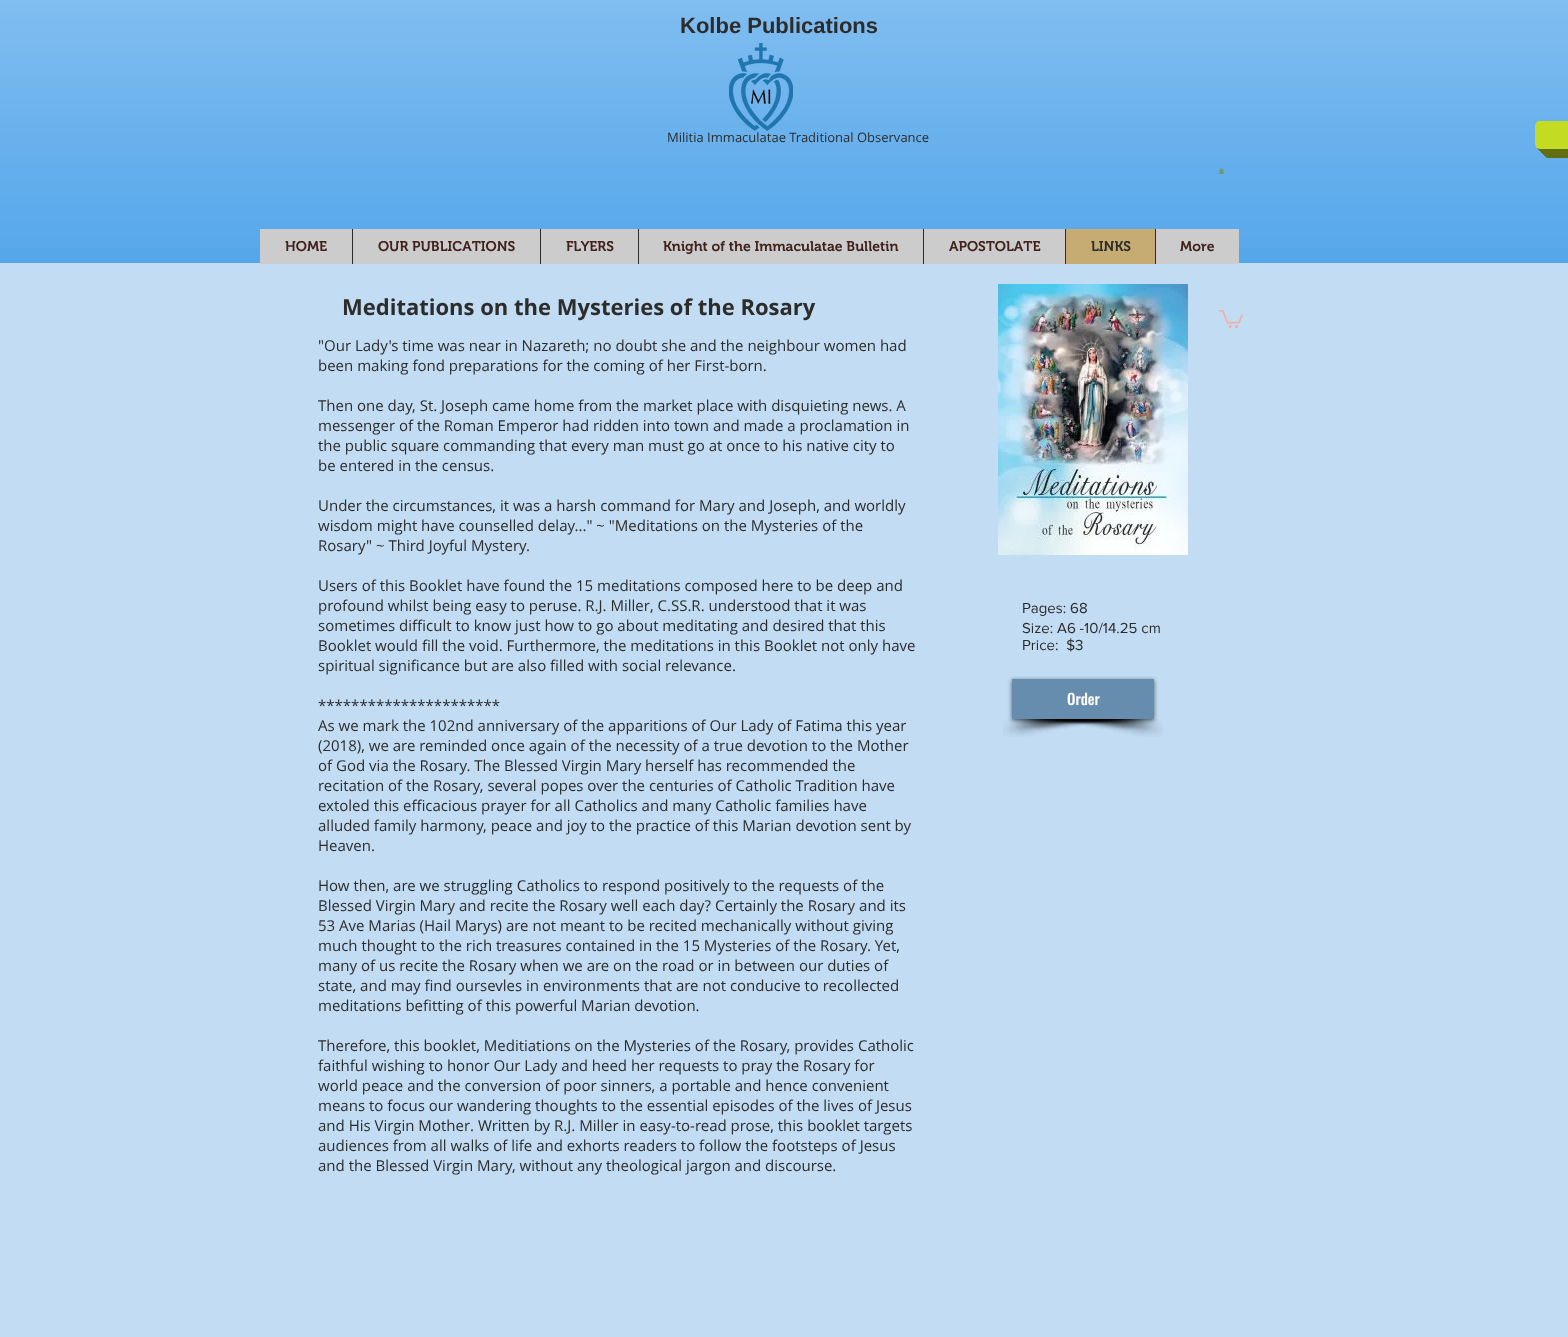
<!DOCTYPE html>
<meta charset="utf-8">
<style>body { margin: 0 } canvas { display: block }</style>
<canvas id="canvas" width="1568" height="1337"></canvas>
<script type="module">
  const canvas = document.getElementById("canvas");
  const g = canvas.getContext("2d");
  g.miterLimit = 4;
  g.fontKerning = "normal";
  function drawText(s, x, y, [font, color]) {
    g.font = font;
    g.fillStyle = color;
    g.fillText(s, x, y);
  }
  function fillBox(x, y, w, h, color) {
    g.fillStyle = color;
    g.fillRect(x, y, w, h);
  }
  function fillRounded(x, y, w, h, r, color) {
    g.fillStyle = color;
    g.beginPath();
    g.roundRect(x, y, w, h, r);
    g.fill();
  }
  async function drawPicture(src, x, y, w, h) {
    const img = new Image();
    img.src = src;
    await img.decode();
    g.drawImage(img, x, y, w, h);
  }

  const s1 = ["bold 22px Liberation Sans", "#2C2C2B"];
  const s2 = ["13px Open Sans", "#2C2C2B"];
  const s3 = ["600 14px 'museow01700'", "#40211C"];
  const s4 = ["600 14px 'museow01700'", "#2C2C2B"];
  const s5 = ["bold 22px Open Sans", "#2C2C2B"];
  const s6 = ["15px Open Sans", "#2C2C2B"];
  const s7 = ["15px 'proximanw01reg'", "#2C2C2B"];
  const s8 = ["500 15px Oswald", "#FFFFFF"];

  fillBox(0, 0, 1568, 1337, "#C2DCF4");
  fillBox(0, 0, 1568, 263, "#55A7EB");
  await drawPicture("pic1.png", 0, 0, 1568, 248);
  drawText("Kolbe Publications", 680, 33, s1);
  await drawPicture("pic2.png", 729, 43, 64, 88);
  drawText("Militia Immaculatae Traditional Observance", 667, 142, s2);
  g.fillStyle = "#626E12";
  g.beginPath();
  g.moveTo(1544, 149);
  g.lineTo(1544, 153);
  g.bezierCurveTo(1544, 156, 1546, 158, 1549, 158);
  g.lineTo(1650, 158);
  g.bezierCurveTo(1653, 158, 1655, 156, 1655, 153);
  g.lineTo(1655, 135);
  g.bezierCurveTo(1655, 132, 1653, 130, 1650, 130);
  g.lineTo(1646, 130);
  g.lineTo(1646, 144);
  g.bezierCurveTo(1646, 147, 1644, 149, 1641, 149);
  g.closePath();
  g.fill();
  g.beginPath();
  g.moveTo(1542, 149);
  g.lineTo(1542, 151);
  g.bezierCurveTo(1542, 154, 1544, 156, 1547, 156);
  g.lineTo(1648, 156);
  g.bezierCurveTo(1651, 156, 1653, 154, 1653, 151);
  g.lineTo(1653, 133);
  g.bezierCurveTo(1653, 130, 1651, 128, 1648, 128);
  g.lineTo(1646, 128);
  g.lineTo(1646, 144);
  g.bezierCurveTo(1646, 147, 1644, 149, 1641, 149);
  g.closePath();
  g.fill();
  g.beginPath();
  g.moveTo(1540, 149);
  g.bezierCurveTo(1540, 152, 1542, 154, 1545, 154);
  g.lineTo(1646, 154);
  g.bezierCurveTo(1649, 154, 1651, 152, 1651, 149);
  g.lineTo(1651, 131);
  g.bezierCurveTo(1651, 128, 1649, 126, 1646, 126);
  g.lineTo(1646, 144);
  g.bezierCurveTo(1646, 147, 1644, 149, 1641, 149);
  g.closePath();
  g.fill();
  g.beginPath();
  g.moveTo(1538, 149);
  g.bezierCurveTo(1539, 151, 1541, 152, 1543, 152);
  g.lineTo(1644, 152);
  g.bezierCurveTo(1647, 152, 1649, 150, 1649, 147);
  g.lineTo(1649, 129);
  g.bezierCurveTo(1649, 127, 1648, 125, 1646, 124);
  g.lineTo(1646, 145);
  g.bezierCurveTo(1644, 153, 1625, 149, 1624, 149);
  g.closePath();
  g.fill();
  g.beginPath();
  g.moveTo(1537, 148);
  g.bezierCurveTo(1538, 149, 1539, 150, 1541, 150);
  g.lineTo(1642, 150);
  g.bezierCurveTo(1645, 150, 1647, 148, 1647, 145);
  g.lineTo(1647, 127);
  g.bezierCurveTo(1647, 125, 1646, 124, 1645, 123);
  g.bezierCurveTo(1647, 126, 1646, 132, 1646, 135);
  g.lineTo(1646, 145);
  g.bezierCurveTo(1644, 153, 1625, 149, 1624, 149);
  g.lineTo(1540, 149);
  g.closePath();
  g.fill();
  fillRounded(1535, 121, 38, 28, 5, "#C3DB23");
  await drawPicture("pic3.png", 1219, 168, 5, 6);
  fillBox(260, 229, 979, 35, "#CCCCCC");
  drawText("HOME", 285, 251, s3);
  fillBox(352, 229, 1, 35, "#2C2C2B");
  drawText("OUR PUBLICATIONS", 378, 251, s3);
  fillBox(540, 229, 1, 35, "#2C2C2B");
  drawText("FLYERS", 566, 251, s3);
  fillBox(638, 229, 1, 35, "#2C2C2B");
  drawText("Knight of the Immaculatae Bulletin", 663, 251, s3);
  fillBox(923, 229, 1, 35, "#2C2C2B");
  drawText("APOSTOLATE", 949, 251, s3);
  fillBox(1066, 229, 89, 35, "#C6AC73");
  fillBox(1065, 229, 1, 35, "#2C2C2B");
  drawText("LINKS", 1091, 251, s4);
  fillBox(1155, 229, 1, 35, "#2C2C2B");
  drawText("More", 1180, 251, s3);
  drawText("Meditations on the Mysteries of the Rosary", 342, 315, s5);
  await drawPicture("pic4.png", 998, 284, 190, 271);
  drawText("\"Our Lady's time was near in Nazareth; no doubt she and the neighbour women had", 318, 351, s6);
  drawText("been making fond preparations for the coming of her First-born.", 318, 371, s6);
  drawText("Then one day, St. Joseph came home from the market place with disquieting news. A", 318, 411, s6);
  drawText("messenger of the Roman Emperor had ridden into town and made a proclamation in", 318, 431, s6);
  drawText("the public square commanding that every man must go at once to his native city to", 318, 451, s6);
  drawText("be entered in the census.", 318, 471, s6);
  drawText("Under the circumstances, it was a harsh command for Mary and Joseph, and worldly", 318, 511, s6);
  drawText("wisdom might have counselled delay...\" ~ \"Meditations on the Mysteries of the", 318, 531, s6);
  drawText("Rosary\" ~ Third Joyful Mystery.", 318, 551, s6);
  drawText("Users of this Booklet have found the 15 meditations composed here to be deep and", 318, 591, s6);
  drawText("profound whilst being easy to peruse. R.J. Miller, C.SS.R. understood that it was", 318, 611, s6);
  drawText("sometimes difficult to know just how to go about meditating and desired that this", 318, 631, s6);
  drawText("Booklet would fill the void. Furthermore, the meditations in this Booklet not only have", 318, 651, s6);
  drawText("spiritual significance but are also filled with social relevance.", 318, 671, s6);
  drawText("**********************", 318, 711, s6);
  drawText("As we mark the 102nd anniversary of the apparitions of Our Lady of Fatima this year", 318, 731, s6);
  drawText("(2018), we are reminded once again of the necessity of a true devotion to the Mother", 318, 751, s6);
  drawText("of God via the Rosary. The Blessed Virgin Mary herself has recommended the", 318, 771, s6);
  drawText("recitation of the Rosary, several popes over the centuries of Catholic Tradition have", 318, 791, s6);
  drawText("extoled this efficacious prayer for all Catholics and many Catholic families have", 318, 811, s6);
  drawText("alluded family harmony, peace and joy to the practice of this Marian devotion sent by", 318, 831, s6);
  drawText("Heaven.", 318, 851, s6);
  drawText("How then, are we struggling Catholics to respond positively to the requests of the", 318, 891, s6);
  drawText("Blessed Virgin Mary and recite the Rosary well each day? Certainly the Rosary and its", 318, 911, s6);
  drawText("53 Ave Marias (Hail Marys) are not meant to be recited mechanically without giving", 318, 931, s6);
  drawText("much thought to the rich treasures contained in the 15 Mysteries of the Rosary. Yet,", 318, 951, s6);
  drawText("many of us recite the Rosary when we are on the road or in between our duties of", 318, 971, s6);
  drawText("state, and may find oursevles in environments that are not conducive to recollected", 318, 991, s6);
  drawText("meditations befitting of this powerful Marian devotion.", 318, 1011, s6);
  drawText("Therefore, this booklet, Meditiations on the Mysteries of the Rosary, provides Catholic", 318, 1051, s6);
  drawText("faithful wishing to honor Our Lady and heed her requests to pray the Rosary for", 318, 1071, s6);
  drawText("world peace and the conversion of poor sinners, a portable and hence convenient", 318, 1091, s6);
  drawText("means to focus our wandering thoughts to the essential episodes of the lives of Jesus", 318, 1111, s6);
  drawText("and His Virgin Mother. Written by R.J. Miller in easy-to-read prose, this booklet targets", 318, 1131, s6);
  drawText("audiences from all walks of life and exhorts readers to follow the footsteps of Jesus", 318, 1151, s6);
  drawText("and the Blessed Virgin Mary, without any theological jargon and discourse.", 318, 1171, s6);
  drawText("Pages: 68", 1022, 613, s7);
  drawText("Size: A6 -10/14.25 cm", 1022, 633, s7);
  drawText("Price:  $3", 1022, 650, s7);
  await drawPicture("pic5.png", 1003, 719, 154, 18);
  await drawPicture("pic6.png", 1009, 719, 154, 18);
  g.fillStyle = "rgba(0, 0, 0, 0.6)";
  g.filter = "blur(2px)";
  g.beginPath();
  g.rect(1012, 680, 142, 40);
  g.fill();
  g.filter = "none";
  fillBox(1012, 679, 142, 40, "#678DAE");
  drawText("Order", 1067, 705, s8);
  await drawPicture("pic7.png", 1219, 310, 24, 19);
</script>
